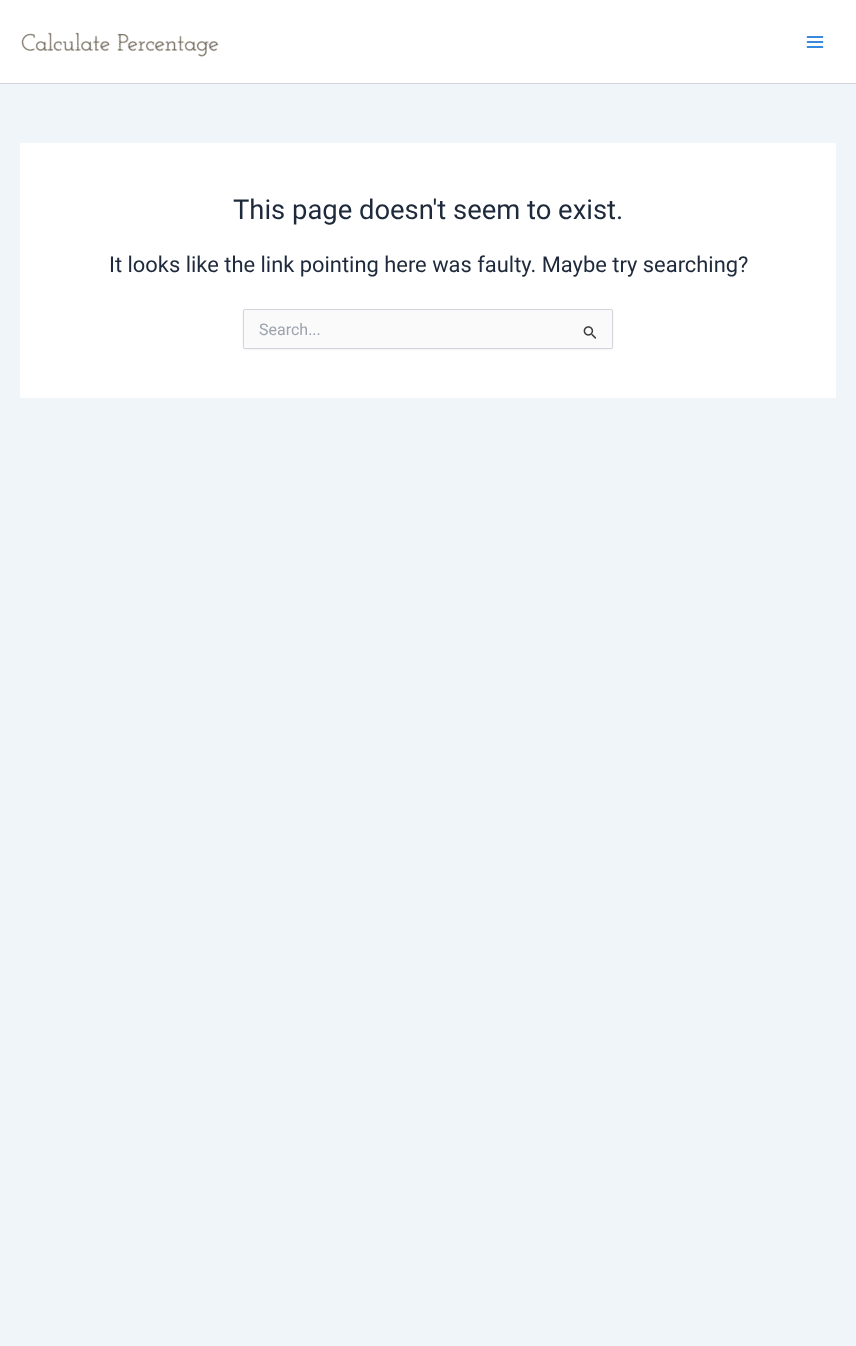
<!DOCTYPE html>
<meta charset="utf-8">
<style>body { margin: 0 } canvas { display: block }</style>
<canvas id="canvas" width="856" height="1346"></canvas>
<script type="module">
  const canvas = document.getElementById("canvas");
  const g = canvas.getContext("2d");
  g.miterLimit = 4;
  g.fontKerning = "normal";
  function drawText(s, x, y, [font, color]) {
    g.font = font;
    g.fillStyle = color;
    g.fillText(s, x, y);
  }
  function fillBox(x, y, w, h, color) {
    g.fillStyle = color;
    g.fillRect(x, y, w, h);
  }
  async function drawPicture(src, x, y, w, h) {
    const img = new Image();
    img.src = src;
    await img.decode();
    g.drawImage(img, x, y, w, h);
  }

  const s1 = ["27.4px Roboto", "#1E293B"];
  const s2 = ["21.9px Roboto", "#1E293B"];
  const s3 = ["16px Roboto", "#9CA3AF"];

  fillBox(0, 0, 856, 1346, "#F0F5FA");
  fillBox(0, 0, 856, 83, "#FFFFFF");
  fillBox(0, 83, 856, 1, "#D1D5DB");
  await drawPicture("pic1.png", 21, 32, 198, 25);
  await drawPicture("pic2.png", 806, 36, 18, 12);
  fillBox(20, 143, 816, 255, "#FFFFFF");
  drawText("This page doesn't seem to exist.", 233, 219, s1);
  drawText("It looks like the link pointing here was faulty. Maybe try searching?", 109, 272, s2);
  g.fillStyle = "rgba(0, 0, 0, 0.05)";
  g.filter = "blur(1px)";
  g.beginPath();
  g.roundRect(243, 310, 370, 40, 2);
  g.fill();
  g.filter = "none";
  g.fillStyle = "#FAFAFA";
  g.beginPath();
  g.roundRect(243.5, 309.5, 369, 39, 1.5);
  g.fill();
  g.strokeStyle = "#D1D5DB";
  g.stroke();
  drawText("Search...", 259, 335, s3);
  await drawPicture("pic3.png", 583, 326, 13, 13);
</script>
